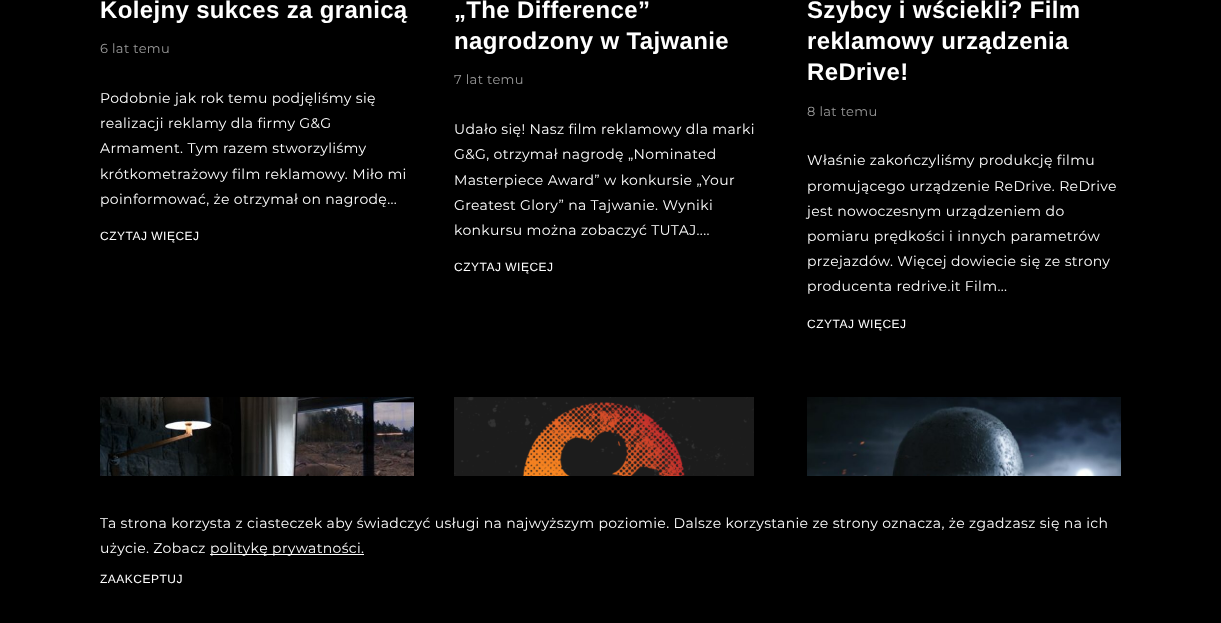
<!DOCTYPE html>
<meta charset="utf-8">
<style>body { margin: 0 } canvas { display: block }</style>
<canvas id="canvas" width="1221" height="623"></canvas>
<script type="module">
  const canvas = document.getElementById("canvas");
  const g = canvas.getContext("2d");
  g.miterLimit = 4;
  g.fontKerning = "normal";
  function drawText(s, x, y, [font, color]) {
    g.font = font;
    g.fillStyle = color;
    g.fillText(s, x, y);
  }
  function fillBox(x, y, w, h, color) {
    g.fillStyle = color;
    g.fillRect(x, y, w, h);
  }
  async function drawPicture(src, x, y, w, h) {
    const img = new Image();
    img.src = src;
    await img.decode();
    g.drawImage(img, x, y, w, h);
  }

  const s1 = ["bold 24px Liberation Sans", "#FFFFFF"];
  const s2 = ["13px Montserrat", "#999999"];
  const s3 = ["14px Montserrat", "#FFFFFF"];
  const s4 = ["12px Liberation Sans", "#FFFFFF"];

  fillBox(0, 0, 1221, 623, "#000000");
  g.letterSpacing = "0.35px";
  drawText("Kolejny sukces za granicą", 100, 18, s1);
  drawText("6 lat temu", 100, 53, s2);
  drawText("Podobnie jak rok temu podjęliśmy się", 100, 103, s3);
  drawText("realizacji reklamy dla firmy G&G", 100, 128, s3);
  drawText("Armament. Tym razem stworzyliśmy", 100, 153, s3);
  drawText("krótkometrażowy film reklamowy. Miło mi", 100, 179, s3);
  drawText("poinformować, że otrzymał on nagrodę...", 100, 204, s3);
  g.letterSpacing = "0.5px";
  drawText("CZYTAJ WIĘCEJ", 100, 240, s4);
  g.letterSpacing = "0.35px";
  drawText("„The Difference”", 454, 18, s1);
  drawText("nagrodzony w Tajwanie", 454, 49, s1);
  drawText("7 lat temu", 454, 84, s2);
  drawText("Udało się! Nasz film reklamowy dla marki", 454, 134, s3);
  drawText("G&G, otrzymał nagrodę „Nominated", 454, 159, s3);
  drawText("Masterpiece Award” w konkursie „Your", 454, 185, s3);
  drawText("Greatest Glory” na Tajwanie. Wyniki", 454, 210, s3);
  drawText("konkursu można zobaczyć TUTAJ....", 454, 235, s3);
  g.letterSpacing = "0.5px";
  drawText("CZYTAJ WIĘCEJ", 454, 271, s4);
  g.letterSpacing = "0.35px";
  drawText("Szybcy i wściekli? Film", 807, 18, s1);
  drawText("reklamowy urządzenia", 807, 49, s1);
  drawText("ReDrive!", 807, 80, s1);
  drawText("8 lat temu", 807, 116, s2);
  drawText("Właśnie zakończyliśmy produkcję filmu", 807, 165, s3);
  drawText("promującego urządzenie ReDrive. ReDrive", 807, 191, s3);
  drawText("jest nowoczesnym urządzeniem do", 807, 216, s3);
  drawText("pomiaru prędkości i innych parametrów", 807, 241, s3);
  drawText("przejazdów. Więcej dowiecie się ze strony", 807, 266, s3);
  drawText("producenta redrive.it Film...", 807, 291, s3);
  g.letterSpacing = "0.5px";
  drawText("CZYTAJ WIĘCEJ", 807, 328, s4);
  await drawPicture("pic1.png", 100, 397, 314, 79);
  await drawPicture("pic2.png", 454, 397, 300, 79);
  await drawPicture("pic3.png", 807, 397, 314, 79);
  g.letterSpacing = "0.35px";
  drawText("Ta strona korzysta z ciasteczek aby świadczyć usługi na najwyższym poziomie. Dalsze korzystanie ze strony oznacza, że zgadzasz się na ich", 100, 528, s3);
  drawText("użycie. Zobacz", 100, 553, s3);
  fillBox(210, 554, 154, 1, "#FFFFFF");
  drawText("politykę prywatności.", 210, 553, s3);
  g.letterSpacing = "0.5px";
  drawText("ZAAKCEPTUJ", 100, 583, s4);
</script>
